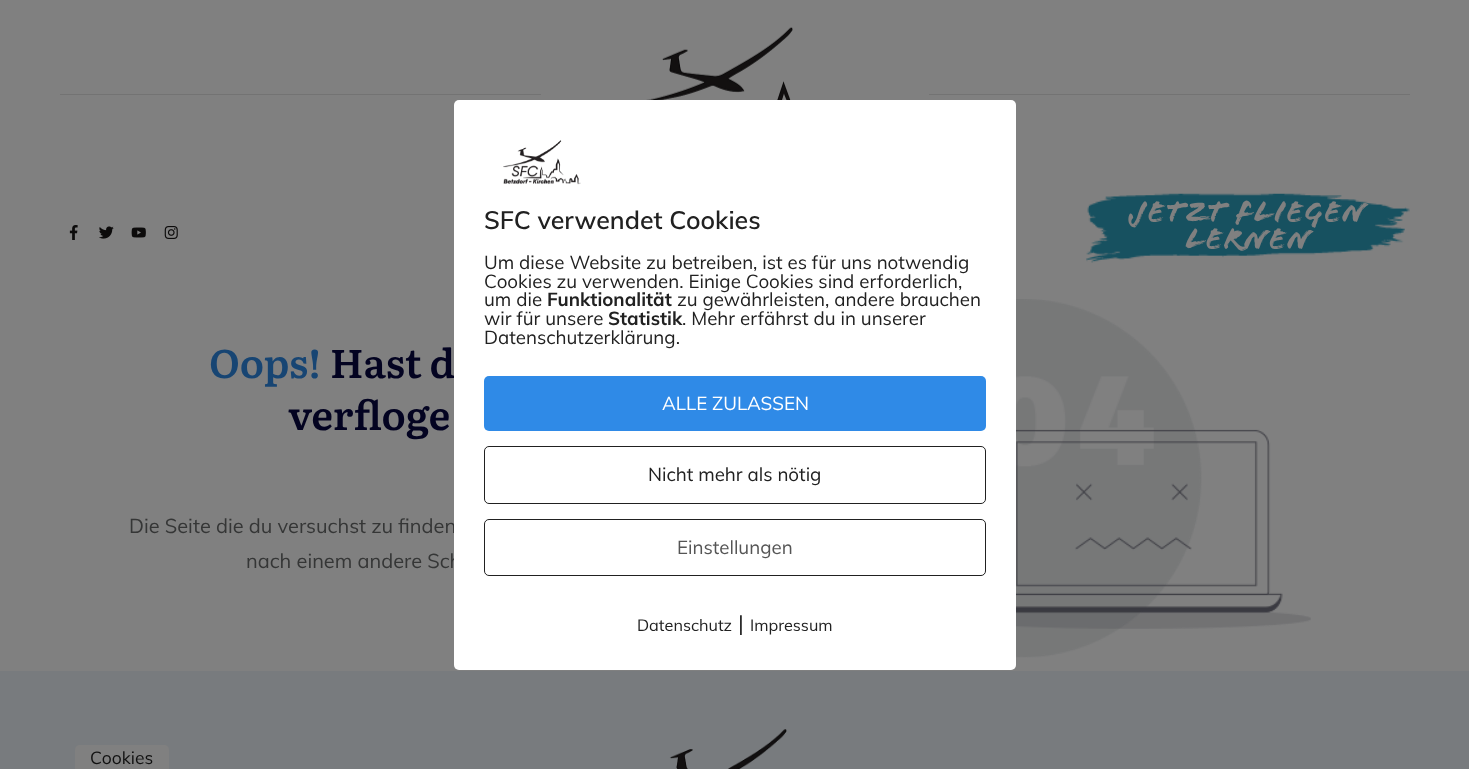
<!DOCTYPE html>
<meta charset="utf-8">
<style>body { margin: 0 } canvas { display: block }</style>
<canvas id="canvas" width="1469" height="769"></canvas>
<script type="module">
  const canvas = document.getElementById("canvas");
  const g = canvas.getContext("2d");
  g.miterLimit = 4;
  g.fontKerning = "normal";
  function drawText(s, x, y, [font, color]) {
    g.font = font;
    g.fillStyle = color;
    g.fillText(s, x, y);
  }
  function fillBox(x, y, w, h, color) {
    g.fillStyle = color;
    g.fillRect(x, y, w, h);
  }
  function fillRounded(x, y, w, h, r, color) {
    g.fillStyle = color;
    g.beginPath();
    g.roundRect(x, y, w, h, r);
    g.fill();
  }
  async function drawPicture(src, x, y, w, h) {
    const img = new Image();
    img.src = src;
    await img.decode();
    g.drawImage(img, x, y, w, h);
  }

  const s1 = ["31.25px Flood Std", "#808080"];
  const s2 = ["600 40px Literata", "#174573"];
  const s3 = ["600 40px Literata", "#030321"];
  const s4 = ["20px Muli", "#353636"];
  const s5 = ["600 25px Muli", "#212121"];
  const s6 = ["18.75px Muli", "#212121"];
  const s7 = ["bold 18.75px Muli", "#212121"];
  const s8 = ["18.75px Muli", "#FFFFFF"];
  const s9 = ["18.75px Muli", "#555555"];
  const s10 = ["16.25px Muli", "#212121"];
  const s11 = ["22px Muli", "#212121"];
  const s12 = ["17.5px Muli", "#111111"];

  fillBox(0, 0, 1469, 769, "#808080");
  fillBox(60, 94, 481, 1, "#737373");
  await drawPicture("pic1.png", 646, 27, 147, 73);
  fillBox(929, 94, 481, 1, "#737373");
  await drawPicture("pic2.png", 69, 225, 9, 15);
  await drawPicture("pic3.png", 99, 226, 15, 13);
  await drawPicture("pic4.png", 131, 227, 15, 11);
  await drawPicture("pic5.png", 164, 226, 14, 13);
  await drawPicture("pic6.png", 1086, 193, 324, 70);
  g.letterSpacing = "1.25px";
  drawText("Jetzt Fliegen", 1129, 221, s1);
  drawText("Lernen", 1185, 248, s1);
  g.letterSpacing = "0px";
  drawText("Oops!", 209, 378, s2);
  drawText("Hast d", 330, 378, s3);
  drawText("verfloge", 288, 430, s3);
  drawText("Die Seite die du versuchst zu finden", 129, 533, s4);
  drawText("nach einem andere Sch", 246, 568, s4);
  await drawPicture("pic7.png", 1016, 299, 295, 359);
  fillBox(0, 671, 1469, 98, "#787B7E");
  await drawPicture("pic8.png", 669, 729, 118, 40);
  fillRounded(454, 100, 562, 570, 5, "#FFFFFF");
  await drawPicture("pic9.png", 503, 140, 78, 45);
  drawText("SFC verwendet Cookies", 484, 229, s5);
  drawText("Um diese Website zu betreiben, ist es für uns notwendig", 484, 269, s6);
  drawText("Cookies zu verwenden. Einige Cookies sind erforderlich,", 484, 288, s6);
  drawText("um die", 484, 306, s6);
  drawText("Funktionalität", 547, 306, s7);
  drawText("zu gewährleisten, andere brauchen", 677, 306, s6);
  drawText("wir für unsere", 484, 325, s6);
  drawText("Statistik", 608, 325, s7);
  drawText(". Mehr erfährst du in unserer", 682, 325, s6);
  drawText("Datenschutzerklärung.", 484, 344, s6);
  fillRounded(484, 376, 502, 55, 5, "#2F8AE7");
  drawText("ALLE ZULASSEN", 662, 410, s8);
  g.beginPath();
  g.roundRect(484.5, 446.5, 501, 57, 4.5);
  g.strokeStyle = "#212121";
  g.stroke();
  drawText("Nicht mehr als nötig", 648, 481, s6);
  g.beginPath();
  g.roundRect(484.5, 519.5, 501, 56, 4.5);
  g.stroke();
  drawText("Einstellungen", 677, 554, s9);
  drawText("Datenschutz", 637, 631, s10);
  drawText("|", 738, 631, s11);
  drawText("Impressum", 750, 631, s10);
  g.fillStyle = "#808080";
  g.beginPath();
  g.moveTo(80, 745);
  g.lineTo(164, 745);
  g.bezierCurveTo(167, 745, 169, 747, 169, 750);
  g.lineTo(169, 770);
  g.lineTo(75, 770);
  g.lineTo(75, 750);
  g.bezierCurveTo(75, 747, 77, 745, 80, 745);
  g.closePath();
  g.fill();
  drawText("Cookies", 90, 764, s12);
</script>
